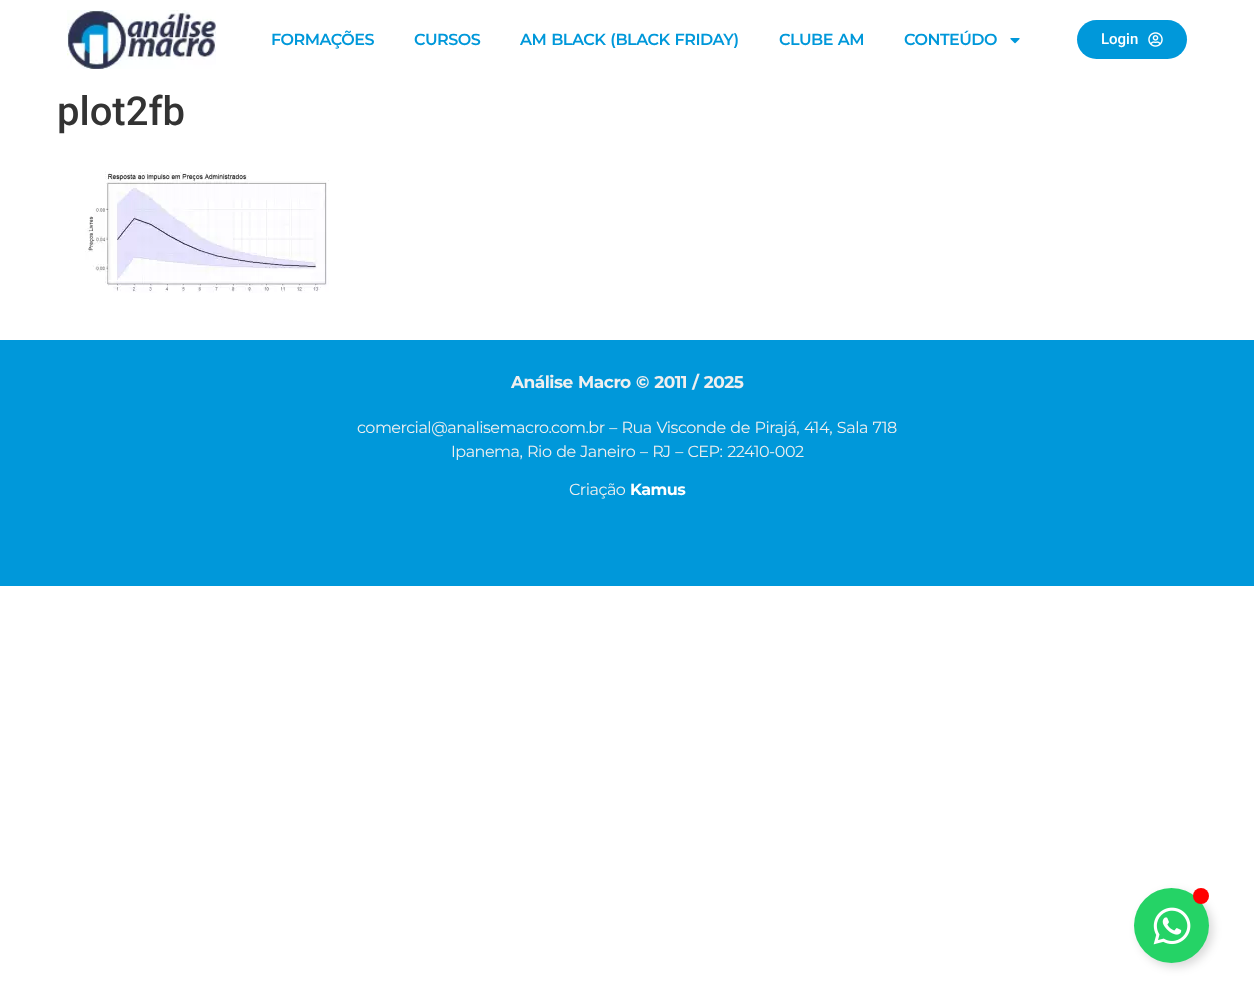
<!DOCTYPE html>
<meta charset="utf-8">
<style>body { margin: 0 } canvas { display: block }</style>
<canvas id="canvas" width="1254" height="988"></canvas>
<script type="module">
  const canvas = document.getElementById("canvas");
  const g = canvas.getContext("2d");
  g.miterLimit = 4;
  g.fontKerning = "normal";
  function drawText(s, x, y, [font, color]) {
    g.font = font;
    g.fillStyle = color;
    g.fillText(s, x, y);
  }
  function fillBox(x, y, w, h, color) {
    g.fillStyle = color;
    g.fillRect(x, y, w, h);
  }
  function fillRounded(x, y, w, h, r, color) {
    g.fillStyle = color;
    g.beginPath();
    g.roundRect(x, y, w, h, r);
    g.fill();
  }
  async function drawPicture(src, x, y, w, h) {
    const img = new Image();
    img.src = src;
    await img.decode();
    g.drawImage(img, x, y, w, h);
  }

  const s1 = ["600 16px Montserrat", "#0098DA"];
  const s2 = ["500 15px Roboto", "#FFFFFF"];
  const s3 = ["500 40px Roboto", "#333333"];
  const s4 = ["bold 17px Montserrat", "#EFEFEF"];
  const s5 = ["16px Montserrat", "#EFEFEF"];
  const s6 = ["bold 16px Montserrat", "#FFFFFF"];

  fillBox(0, 0, 1254, 988, "#FFFFFF");
  await drawPicture("pic1.png", 67, 10, 149, 59);
  g.letterSpacing = "-0.5px";
  drawText("FORMAÇÕES", 271, 45, s1);
  drawText("CURSOS", 414, 45, s1);
  g.wordSpacing = "1px";
  drawText("AM BLACK (BLACK FRIDAY)", 520, 45, s1);
  drawText("CLUBE AM", 779, 45, s1);
  g.wordSpacing = "0px";
  drawText("CONTEÚDO", 904, 45, s1);
  await drawPicture("pic2.png", 1010, 38, 10, 6);
  fillRounded(1077, 20, 110, 39, 19.5, "#0098DA");
  g.letterSpacing = "0px";
  drawText("Login", 1101, 44, s2);
  await drawPicture("pic3.png", 1148, 32, 15, 15);
  drawText("plot2fb", 57, 125, s3);
  await drawPicture("pic4.png", 85, 171, 244, 122);
  fillBox(0, 340, 1254, 246, "#0098DA");
  g.letterSpacing = "-0.5px";
  g.wordSpacing = "1px";
  drawText("Análise Macro © 2011 / 2025", 511, 388, s4);
  drawText("comercial@analisemacro.com.br – Rua Visconde de Pirajá, 414, Sala 718", 357, 433, s5);
  drawText("Ipanema, Rio de Janeiro – RJ – CEP: 22410-002", 451, 457, s5);
  g.wordSpacing = "0px";
  drawText("Criação", 569, 495, s5);
  drawText("Kamus", 630, 495, s6);
  g.fillStyle = "rgba(0, 0, 0, 0.15)";
  g.filter = "blur(5px)";
  g.beginPath();
  g.roundRect(1138, 892, 75, 75, 37.5);
  g.fill();
  g.filter = "none";
  g.fillStyle = "#25D366";
  g.beginPath();
  g.arc(1171.5, 925.5, 37.5, 0, Math.PI * 2);
  g.fill();
  g.fillStyle = "#FF0000";
  g.beginPath();
  g.arc(1201, 896, 8, 0, Math.PI * 2);
  g.fill();
  await drawPicture("pic5.png", 1153, 907, 38, 38);
</script>
